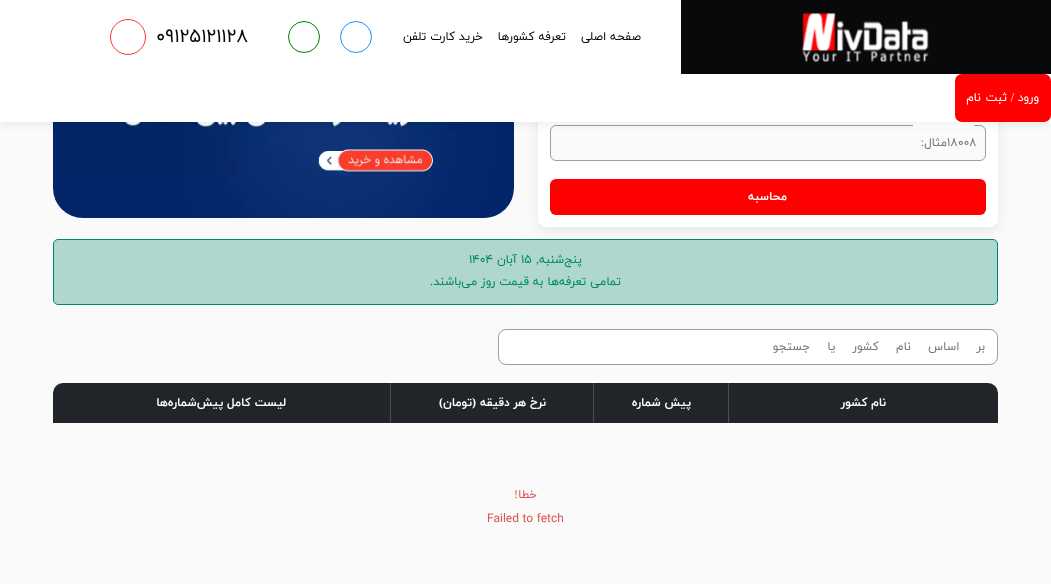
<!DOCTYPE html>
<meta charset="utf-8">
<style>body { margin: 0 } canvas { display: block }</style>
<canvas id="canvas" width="1051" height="584"></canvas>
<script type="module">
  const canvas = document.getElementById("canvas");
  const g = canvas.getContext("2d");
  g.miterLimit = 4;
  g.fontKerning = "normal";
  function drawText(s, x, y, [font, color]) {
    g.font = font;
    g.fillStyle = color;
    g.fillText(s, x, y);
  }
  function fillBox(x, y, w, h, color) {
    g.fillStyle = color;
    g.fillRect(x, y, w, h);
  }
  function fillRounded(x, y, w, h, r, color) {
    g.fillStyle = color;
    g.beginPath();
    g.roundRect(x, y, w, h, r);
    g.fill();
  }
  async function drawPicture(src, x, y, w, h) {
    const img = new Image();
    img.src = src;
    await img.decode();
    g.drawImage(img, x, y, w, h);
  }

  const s1 = ["12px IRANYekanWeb", "#09090B"];
  const s2 = ["19px IRANYekanWeb", "#09090B"];
  const s3 = ["12px IRANYekanWeb", "#FFFFFF"];
  const s4 = ["12px Liberation Serif", "#FFFFFF"];
  const s5 = ["12px IRANYekanWeb", "#757575"];
  const s6 = ["12px Liberation Serif", "#757575"];
  const s7 = ["bold 12px IRANYekanWeb", "#FFFFFF"];
  const s8 = ["12px IRANYekanWeb", "#008668"];
  const s9 = ["12px Liberation Serif", "#008668"];
  const s10 = ["bold 12px Liberation Serif", "#FFFFFF"];
  const s11 = ["12px IRANYekanWeb", "#D9534F"];
  const s12 = ["12px Liberation Serif", "#D9534F"];
  const s13 = ["12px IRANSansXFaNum", "#D9534F"];

  fillBox(0, 0, 1051, 584, "#FAFAFA");
  g.fillStyle = "#AFD7CE";
  g.beginPath();
  g.roundRect(53.5, 239.5, 944, 65, 4.5);
  g.fill();
  g.strokeStyle = "#008668";
  g.stroke();
  g.fillStyle = "rgba(0, 0, 0, 0.08)";
  g.filter = "blur(6px)";
  g.beginPath();
  g.roundRect(538, 42, 460, 189, 8);
  g.fill();
  g.filter = "none";
  fillRounded(538, 38, 460, 189, 8, "#FFFFFF");
  g.fillStyle = "#FAFAFA";
  g.beginPath();
  g.roundRect(550.5, 125.5, 435, 35, 5.5);
  g.fill();
  g.strokeStyle = "#9E9E9E";
  g.stroke();
  fillBox(913, 125, 61, 3, "#FFFFFF");
  await drawPicture("pic2.png", 53, 122, 461, 96);
  g.fillStyle = "rgba(0, 0, 0, 0.05)";
  g.filter = "blur(3px)";
  g.beginPath();
  g.rect(0, 4, 1051, 122);
  g.fill();
  g.filter = "none";
  fillBox(0, 0, 1051, 122, "#FFFFFF");
  fillBox(681, 0, 370, 74, "#09090B");
  await drawPicture("pic1.png", 802, 12, 127, 50);
  g.direction = "rtl";
  drawText("صفحه اصلی", 641, 40, s1);
  drawText("تعرفه کشورها", 566, 40, s1);
  drawText("خرید کارت تلفن", 483, 40, s1);
  g.beginPath();
  g.arc(356, 37, 15.5, 0, Math.PI * 2);
  g.strokeStyle = "#1E90FF";
  g.stroke();
  g.beginPath();
  g.arc(304, 37, 15.5, 0, Math.PI * 2);
  g.strokeStyle = "#008000";
  g.stroke();
  g.direction = "ltr";
  drawText("۰۹۱۲۵۱۲۱۱۲۸", 156, 42, s2);
  g.beginPath();
  g.arc(128, 37, 17.5, 0, Math.PI * 2);
  g.strokeStyle = "#EF353C";
  g.stroke();
  fillRounded(955, 74, 96, 48, 7, "#FF0000");
  g.direction = "rtl";
  drawText("ورود", 1039, 101, s3);
  drawText("/", 1014, 101, s4);
  g.wordSpacing = "1px";
  drawText("ثبت نام", 1007, 101, s3);
  g.wordSpacing = "0px";
  g.direction = "ltr";
  drawText("۱۸۰۰۸", 947, 146, s5);
  g.direction = "rtl";
  drawText("مثال", 947, 146, s5);
  drawText(":", 924, 146, s6);
  fillRounded(550, 179, 436, 36, 6, "#FF0000");
  drawText("محاسبه", 787, 200, s7);
  drawText("پنج‌شنبه", 582, 263, s8);
  drawText(",", 539, 263, s9);
  g.direction = "ltr";
  drawText("۱۵", 521, 263, s8);
  g.direction = "rtl";
  drawText("آبان", 517, 263, s8);
  g.direction = "ltr";
  drawText("۱۴۰۴", 469, 263, s8);
  g.direction = "rtl";
  drawText("تمامی تعرفه‌‌ها به قیمت روز می‌باشند", 621, 285, s8);
  drawText(".", 433, 285, s9);
  g.fillStyle = "#FFFFFF";
  g.beginPath();
  g.roundRect(498.5, 329.5, 499, 35, 7.5);
  g.fill();
  g.strokeStyle = "#9E9E9E";
  g.stroke();
  g.wordSpacing = "13.5px";
  drawText("بر اساس نام کشور یا", 985, 350, s5);
  g.wordSpacing = "0px";
  drawText("جستجو", 810, 350, s5);
  g.fillStyle = "#212529";
  g.beginPath();
  g.roundRect(53, 383, 945, 40, [10, 10, 0, 0]);
  g.fill();
  fillBox(728, 383, 1, 40, "#4A4E52");
  drawText("نام کشور", 886, 406, s7);
  fillBox(593, 383, 1, 40, "#4A4E52");
  drawText("پیش شماره", 691, 406, s7);
  fillBox(390, 383, 1, 40, "#4A4E52");
  drawText("نرخ هر دقیقه", 546, 406, s7);
  drawText("(", 476, 406, s10);
  drawText("تومان", 472, 406, s7);
  drawText(")", 443, 406, s10);
  drawText("لیست کامل پیش‌شماره‌ها", 286, 406, s7);
  drawText("خطا", 537, 498, s11);
  drawText("!", 518, 498, s12);
  g.direction = "ltr";
  drawText("Failed to fetch", 487, 522, s13);
</script>
